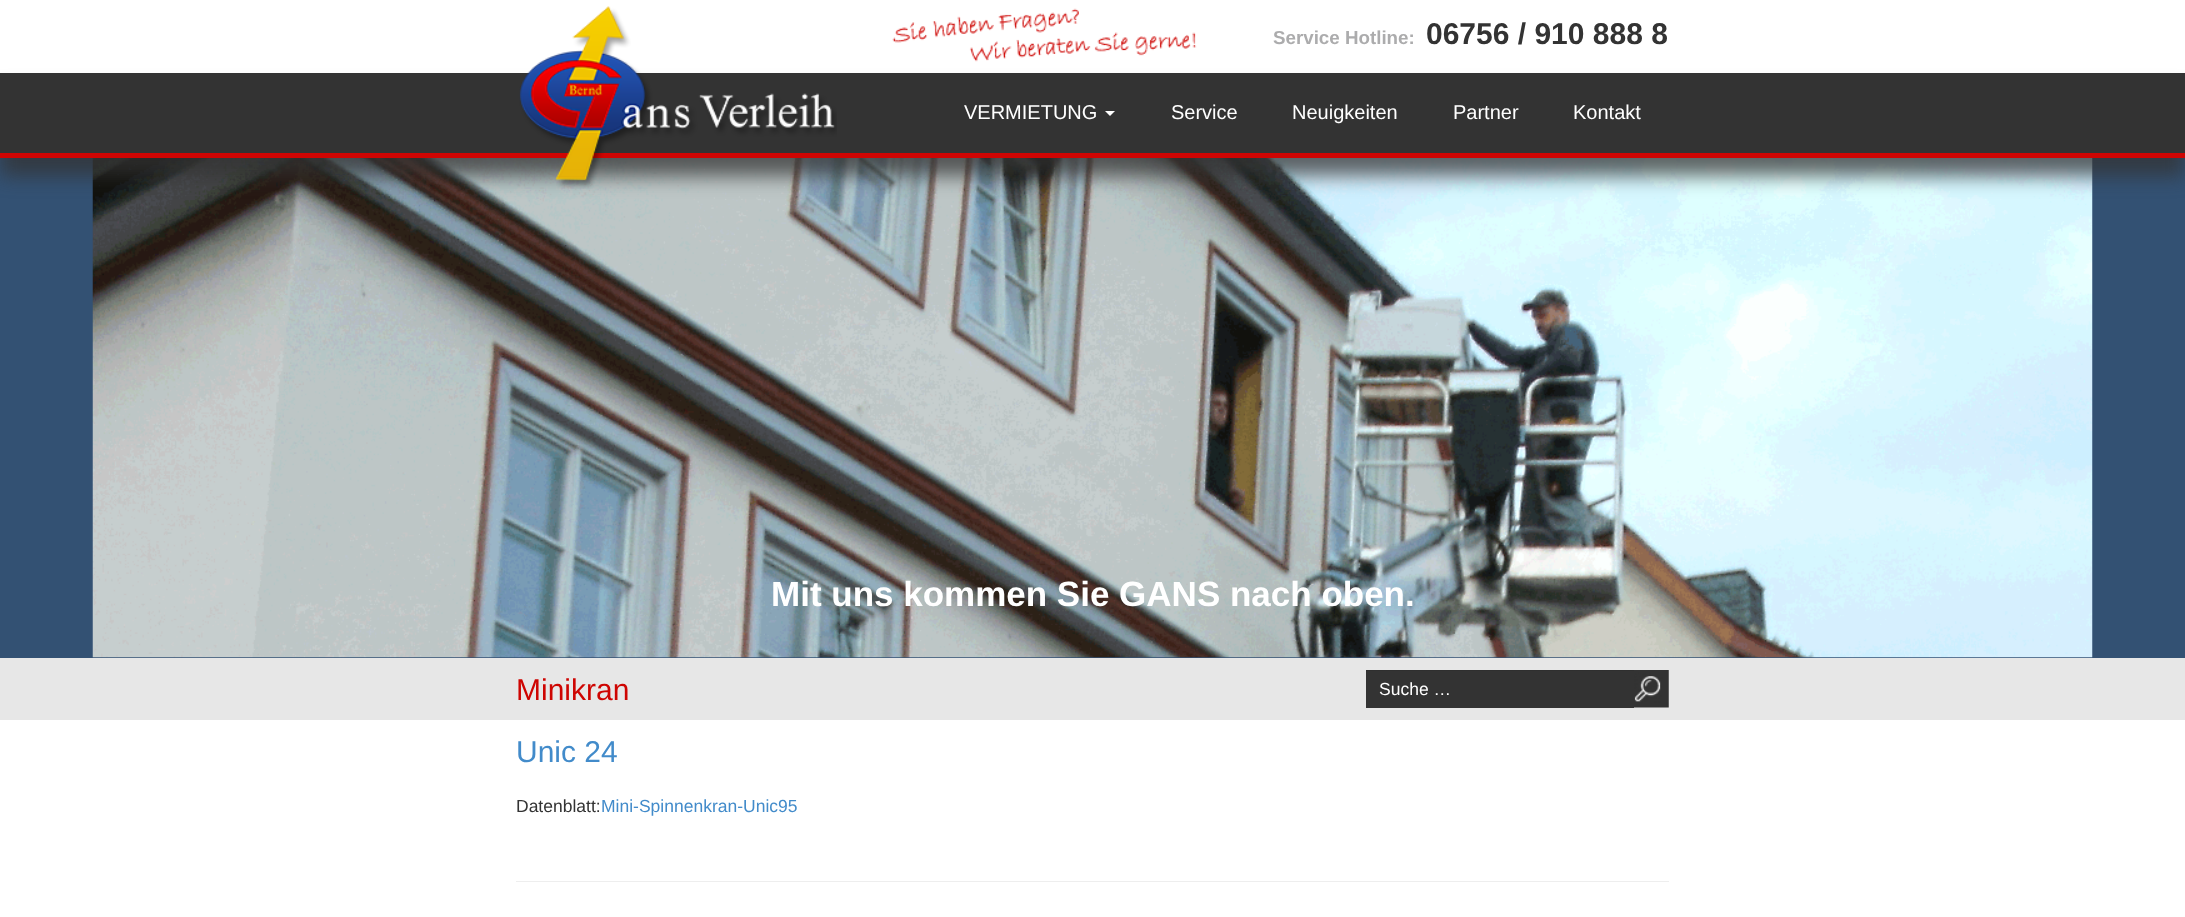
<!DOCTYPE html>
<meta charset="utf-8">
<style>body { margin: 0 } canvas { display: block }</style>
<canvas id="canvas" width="2185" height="917"></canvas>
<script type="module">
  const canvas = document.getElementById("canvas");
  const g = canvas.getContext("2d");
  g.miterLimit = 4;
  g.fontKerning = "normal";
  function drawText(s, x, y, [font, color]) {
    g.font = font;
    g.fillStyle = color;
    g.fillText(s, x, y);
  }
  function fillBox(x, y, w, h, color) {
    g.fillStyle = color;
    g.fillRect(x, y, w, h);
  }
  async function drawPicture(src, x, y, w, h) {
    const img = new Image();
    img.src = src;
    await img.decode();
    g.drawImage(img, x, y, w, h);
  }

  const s1 = ["bold 18.75px Liberation Sans", "#ACACAD"];
  const s2 = ["bold 30px Liberation Sans", "#333333"];
  const s3 = ["20px Liberation Sans", "#FFFFFF"];
  const s4 = ["bold 35px Liberation Sans", "#FFFFFF"];
  const s5 = ["30px Liberation Sans", "#CE0502"];
  const s6 = ["17.5px Liberation Sans", "#FFFFFF"];
  const s7 = ["30px Liberation Sans", "#428BCA"];
  const s8 = ["17.5px Liberation Sans", "#333333"];
  const s9 = ["17.5px Liberation Sans", "#428BCA"];

  fillBox(0, 0, 2185, 917, "#FFFFFF");
  await drawPicture("pic2.png", 892, 8, 305, 54);
  fillBox(0, 158, 2185, 500, "#335173");
  await drawPicture("pic3.png", 92, 158, 2001, 500);
  g.fillStyle = "rgba(51, 51, 51, 0.75)";
  g.filter = "blur(9.5px)";
  g.beginPath();
  g.rect(0, 91, 2185, 85);
  g.fill();
  g.filter = "none";
  fillBox(0, 73, 2185, 80, "#333333");
  fillBox(0, 153, 2185, 5, "#CF0503");
  await drawPicture("pic1.png", 519, 6, 318, 183);
  drawText("Service Hotline:", 1273, 44, s1);
  drawText("06756 / 910 888 8", 1426, 44, s2);
  drawText("VERMIETUNG", 964, 119, s3);
  g.beginPath();
  g.moveTo(1105, 111);
  g.lineTo(1115, 111);
  g.lineTo(1110, 116);
  g.closePath();
  g.fill();
  drawText("Service", 1171, 119, s3);
  drawText("Neuigkeiten", 1292, 119, s3);
  drawText("Partner", 1453, 119, s3);
  drawText("Kontakt", 1573, 119, s3);
  drawText("Mit uns kommen Sie GANS nach oben.", 771, 606, s4);
  fillBox(0, 658, 2185, 62, "#E7E7E7");
  drawText("Minikran", 516, 700, s5);
  fillBox(1366, 671, 268, 37, "#333333");
  fillBox(1366, 670, 268, 1, "#2F2F2F");
  drawText("Suche …", 1379, 695, s6);
  await drawPicture("pic4.png", 1634, 670, 35, 38);
  drawText("Unic 24", 516, 762, s7);
  drawText("Datenblatt:", 516, 812, s8);
  drawText("Mini-Spinnenkran-Unic95", 601, 812, s9);
  fillBox(516, 881, 1153, 1, "#EEEEEE");
</script>
